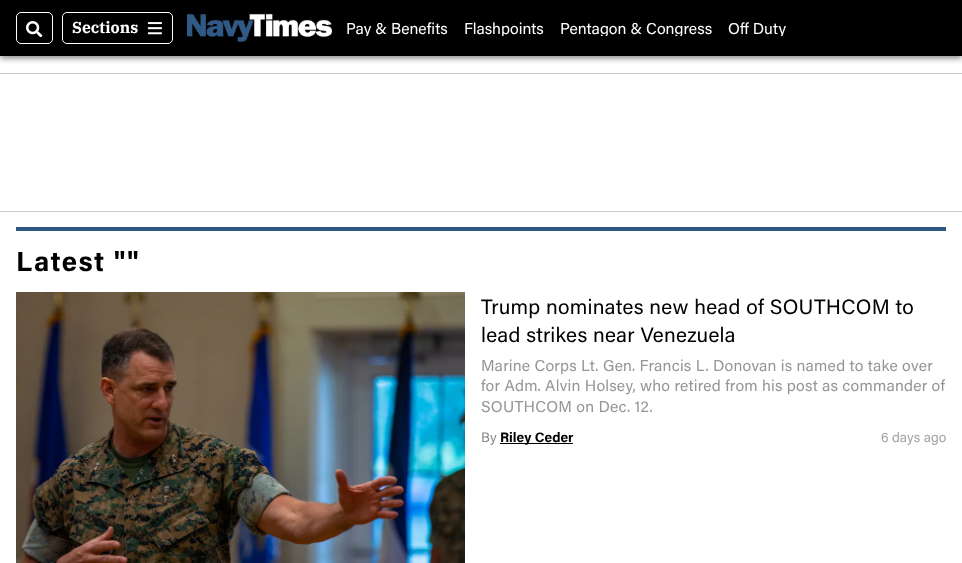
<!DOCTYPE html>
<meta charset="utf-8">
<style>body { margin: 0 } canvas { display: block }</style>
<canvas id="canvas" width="962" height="563"></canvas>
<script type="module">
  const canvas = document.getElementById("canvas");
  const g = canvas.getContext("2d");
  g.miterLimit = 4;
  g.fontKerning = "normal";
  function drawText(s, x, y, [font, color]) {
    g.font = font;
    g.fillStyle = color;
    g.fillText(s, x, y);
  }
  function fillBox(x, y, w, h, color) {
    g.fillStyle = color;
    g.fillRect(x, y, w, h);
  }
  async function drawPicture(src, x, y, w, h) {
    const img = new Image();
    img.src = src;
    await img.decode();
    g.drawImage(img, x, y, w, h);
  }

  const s1 = ["bold 15.75px IBM Plex Serif", "#FFFFFF"];
  const s2 = ["15.75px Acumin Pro", "#FFFFFF"];
  const s3 = ["bold 27.5px Acumin Pro", "#000000"];
  const s4 = ["20.8px Acumin Pro", "#000000"];
  const s5 = ["15.75px Acumin Pro", "#969696"];
  const s6 = ["13.75px Acumin Pro", "#898989"];
  const s7 = ["bold 13.75px Acumin Pro", "#000000"];
  const s8 = ["13.75px Acumin Pro", "#A3A3A3"];

  fillBox(0, 0, 962, 563, "#FFFFFF");
  g.fillStyle = "rgba(0, 0, 0, 0.5)";
  g.filter = "blur(3px)";
  g.beginPath();
  g.rect(0, 2, 962, 56);
  g.fill();
  g.filter = "none";
  fillBox(0, 0, 962, 56, "#000000");
  g.beginPath();
  g.roundRect(16.5, 12.5, 36, 31, 4.5);
  g.strokeStyle = "#FFFFFF";
  g.stroke();
  await drawPicture("pic1.png", 26, 21, 17, 16);
  g.beginPath();
  g.roundRect(62.5, 12.5, 110, 31, 4.5);
  g.stroke();
  drawText("Sections", 72, 33, s1);
  await drawPicture("pic2.png", 147, 22, 16, 13);
  await drawPicture("pic3.png", 187, 13, 145, 29);
  g.save();
  g.beginPath();
  g.rect(346, 20, 586, 16);
  g.clip();
  drawText("Pay & Benefits", 346, 34, s2);
  drawText("Flashpoints", 464, 34, s2);
  drawText("Pentagon & Congress", 560, 34, s2);
  drawText("Off Duty", 728, 34, s2);
  g.restore();
  fillBox(0, 73, 962, 1, "#C9C9C9");
  fillBox(0, 211, 962, 1, "#C9C9C9");
  fillBox(16, 227, 930, 4, "#2E5884");
  g.letterSpacing = "1.5px";
  drawText("Latest \"\"", 16, 271, s3);
  await drawPicture("pic4.png", 16, 292, 449, 271);
  g.letterSpacing = "0.25px";
  drawText("Trump nominates new head of SOUTHCOM to", 481, 314, s4);
  drawText("lead strikes near Venezuela", 481, 342, s4);
  g.letterSpacing = "0.2px";
  drawText("Marine Corps Lt. Gen. Francis L. Donovan is named to take over", 481, 371, s5);
  drawText("for Adm. Alvin Holsey, who retired from his post as commander of", 481, 391, s5);
  drawText("SOUTHCOM on Dec. 12.", 481, 412, s5);
  g.letterSpacing = "0px";
  drawText("By", 481, 442, s6);
  fillBox(500, 443, 73, 1, "#000000");
  drawText("Riley Ceder", 500, 442, s7);
  drawText("6 days ago", 881, 442, s8);
</script>
